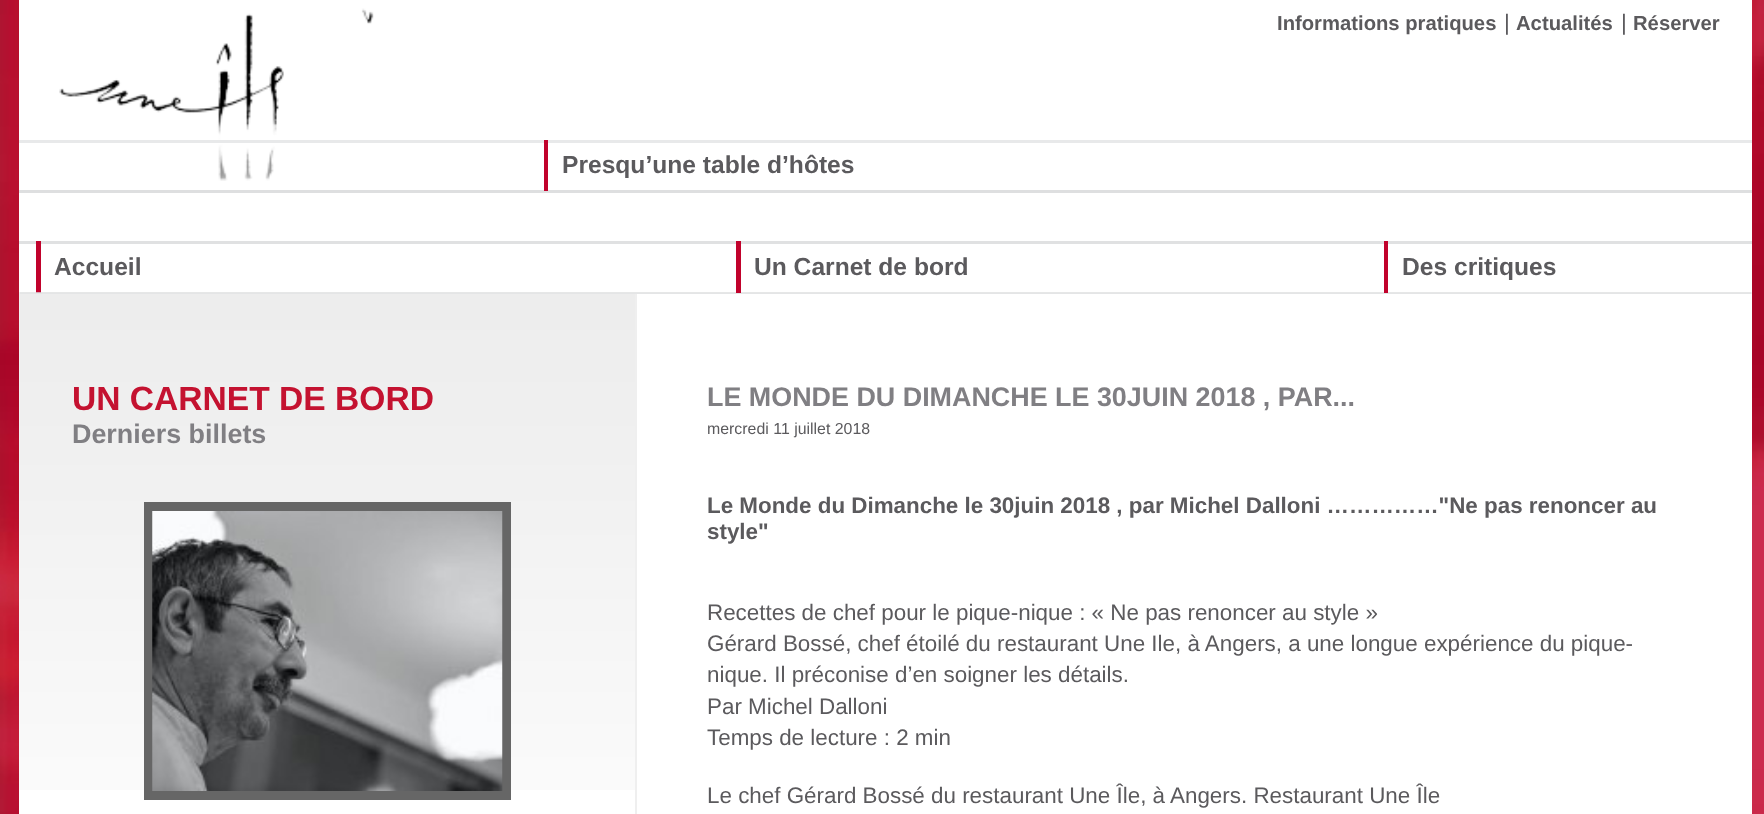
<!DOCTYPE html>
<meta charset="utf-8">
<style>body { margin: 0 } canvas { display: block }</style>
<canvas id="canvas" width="1764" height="814"></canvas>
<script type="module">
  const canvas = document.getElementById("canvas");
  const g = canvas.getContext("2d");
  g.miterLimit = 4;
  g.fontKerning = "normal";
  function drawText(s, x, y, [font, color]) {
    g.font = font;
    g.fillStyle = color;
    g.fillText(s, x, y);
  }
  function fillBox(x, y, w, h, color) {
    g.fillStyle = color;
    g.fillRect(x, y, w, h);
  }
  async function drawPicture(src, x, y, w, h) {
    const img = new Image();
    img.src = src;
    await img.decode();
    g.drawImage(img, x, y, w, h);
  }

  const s1 = ["bold 20.25px Liberation Sans", "#5B5A5D"];
  const s2 = ["22.4px Liberation Sans", "#5B5A5D"];
  const s3 = ["bold 24.6px Liberation Sans", "#5B5A5D"];
  const s4 = ["bold 33.6px Liberation Sans", "#C41230"];
  const s5 = ["bold 26.9px Liberation Sans", "#807F83"];
  const s6 = ["15.9px Liberation Sans", "#5B5A5D"];
  const s7 = ["bold 22.4px Liberation Sans", "#5B5A5D"];

  fillBox(0, 0, 1764, 814, "#FFFFFF");
  await drawPicture("pic1.png", 0, 0, 1764, 814);
  fillBox(19, 0, 1733, 814, "#FFFFFF");
  await drawPicture("pic2.png", 59, 8, 315, 173);
  drawText("Informations pratiques", 1277, 30, s1);
  drawText("|", 1504, 30, s2);
  drawText("Actualités", 1516, 30, s1);
  drawText("|", 1621, 30, s2);
  drawText("Réserver", 1633, 30, s1);
  fillBox(19, 140, 1733, 3, "#E8E9EA");
  fillBox(19, 190, 1733, 3, "#DEDFE0");
  fillBox(544, 140, 4, 51, "#C1022C");
  drawText("Presqu’une table d’hôtes", 562, 173, s3);
  fillBox(19, 241, 1733, 3, "#E0E1E2");
  fillBox(36, 241, 5, 52, "#C1022C");
  drawText("Accueil", 54, 275, s3);
  await drawPicture("pic3.png", 19, 292, 1733, 2);
  fillBox(736, 241, 5, 52, "#C1022C");
  drawText("Un Carnet de bord", 754, 275, s3);
  fillBox(1384, 241, 4, 52, "#C1022C");
  drawText("Des critiques", 1402, 275, s3);
  await drawPicture("pic4.png", 19, 294, 616, 496);
  fillBox(635, 294, 2, 520, "#EFEFEF");
  drawText("UN CARNET DE BORD", 72, 410, s4);
  drawText("Derniers billets", 72, 443, s5);
  g.strokeStyle = "#666666";
  g.lineWidth = 9;
  g.strokeRect(148.5, 506.5, 358, 289);
  await drawPicture("pic5.png", 152, 511, 351, 280);
  drawText("LE MONDE DU DIMANCHE LE 30JUIN 2018 , PAR...", 707, 406, s5);
  drawText("mercredi 11 juillet 2018", 707, 434, s6);
  drawText("Le Monde du Dimanche le 30juin 2018 , par Michel Dalloni ……………\"Ne pas renoncer au", 707, 513, s7);
  drawText("style\"", 707, 539, s7);
  drawText("Recettes de chef pour le pique-nique : « Ne pas renoncer au style »", 707, 620, s2);
  drawText("Gérard Bossé, chef étoilé du restaurant Une Ile, à Angers, a une longue expérience du pique-", 707, 651, s2);
  drawText("nique. Il préconise d’en soigner les détails.", 707, 682, s2);
  drawText("Par Michel Dalloni", 707, 714, s2);
  drawText("Temps de lecture : 2 min", 707, 745, s2);
  drawText("Le chef Gérard Bossé du restaurant Une Île, à Angers. Restaurant Une Île", 707, 803, s2);
</script>
